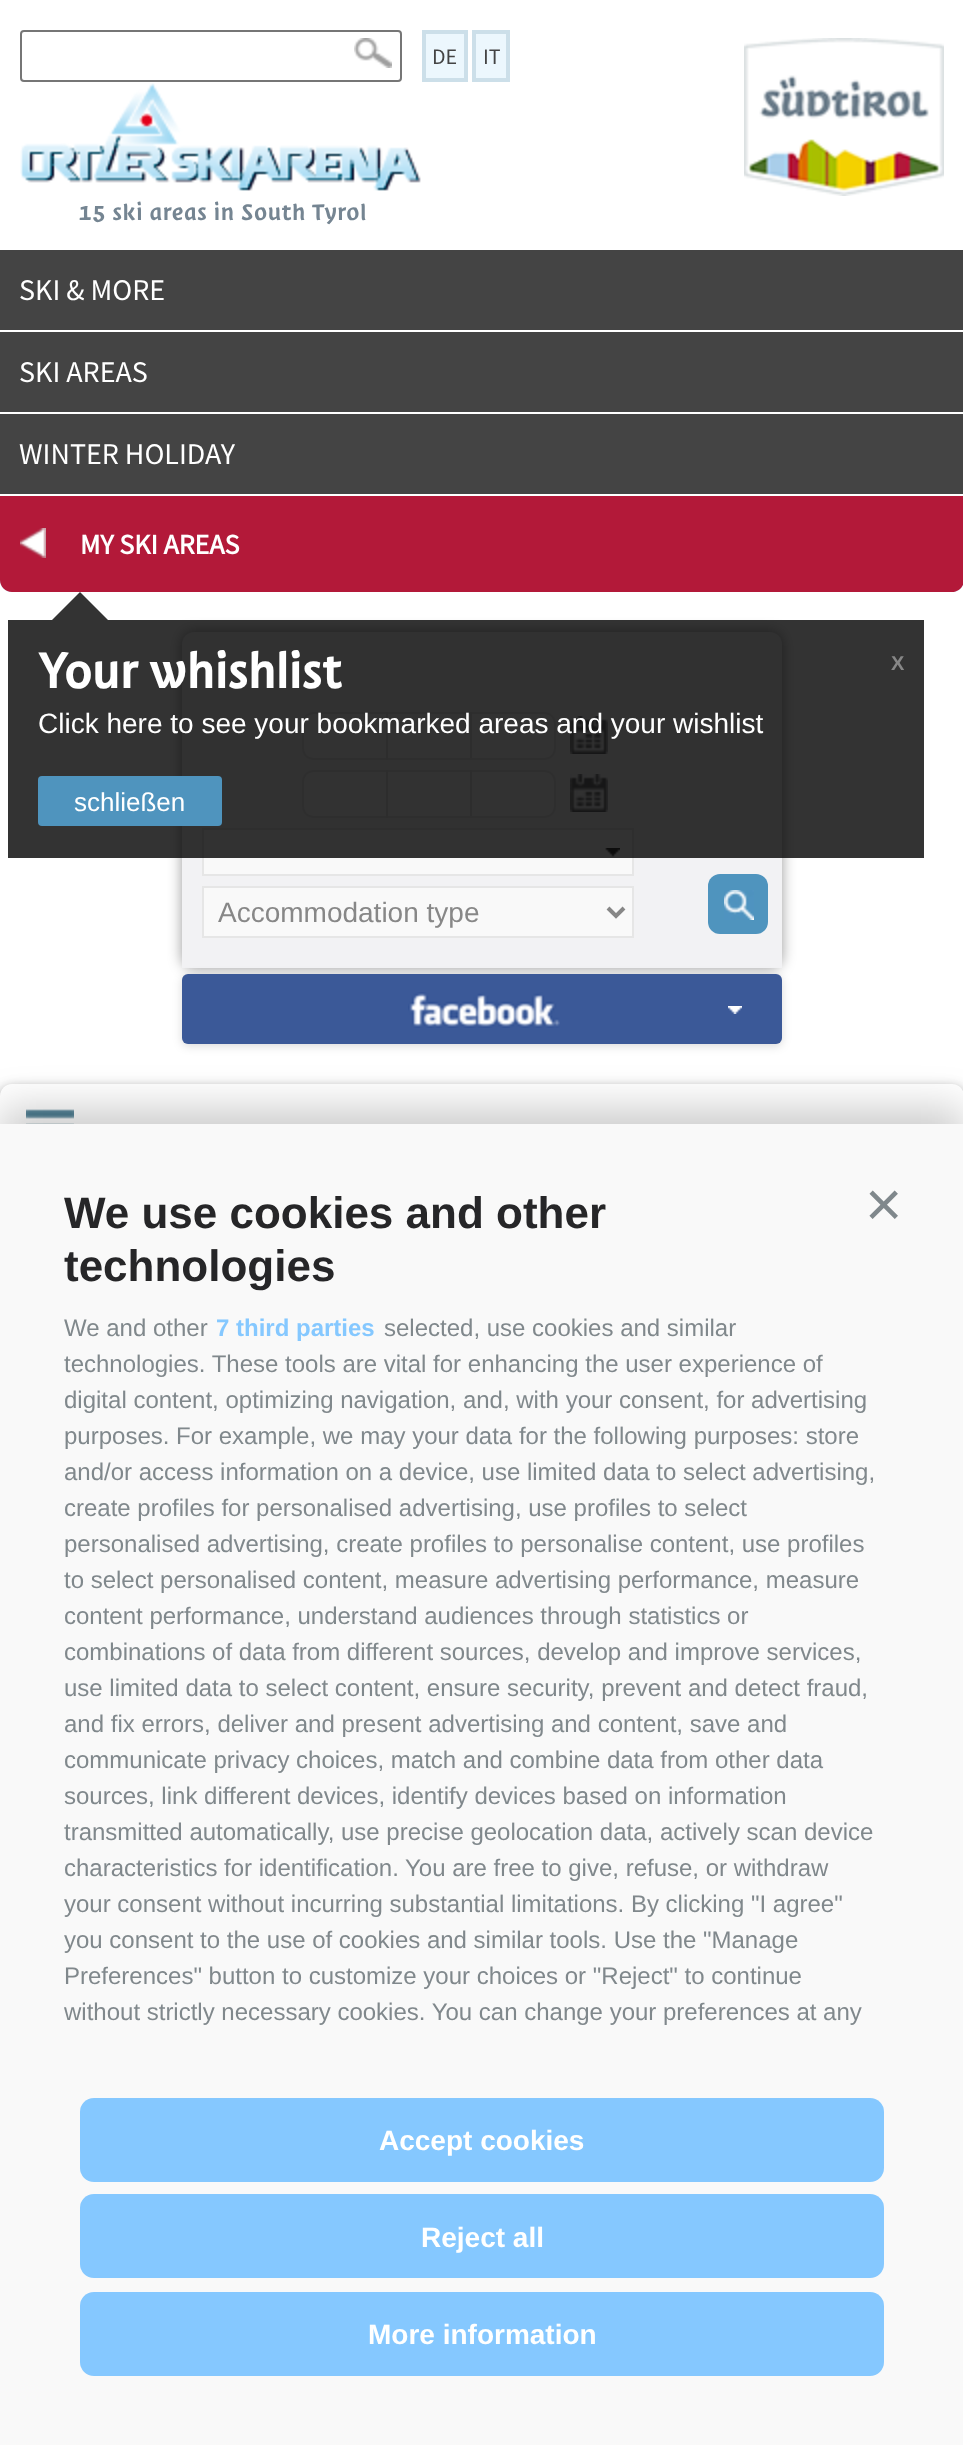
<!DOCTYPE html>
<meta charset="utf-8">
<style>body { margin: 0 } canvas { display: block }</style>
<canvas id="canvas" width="963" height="2445"></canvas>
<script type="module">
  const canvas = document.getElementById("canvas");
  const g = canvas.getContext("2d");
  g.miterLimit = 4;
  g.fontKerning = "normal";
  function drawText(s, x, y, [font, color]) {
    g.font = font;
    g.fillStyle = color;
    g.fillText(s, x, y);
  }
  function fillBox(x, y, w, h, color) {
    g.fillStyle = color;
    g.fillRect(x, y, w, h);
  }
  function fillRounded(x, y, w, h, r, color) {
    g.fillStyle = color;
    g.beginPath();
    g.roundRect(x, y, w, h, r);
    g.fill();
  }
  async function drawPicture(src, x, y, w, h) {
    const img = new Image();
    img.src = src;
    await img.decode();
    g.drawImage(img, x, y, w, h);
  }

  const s1 = ["22px Source Sans Pro", "#444444"];
  const s2 = ["26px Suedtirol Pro", "#758592"];
  const s3 = ["30px Source Sans Pro", "#FFFFFF"];
  const s4 = ["bold 28px Source Sans Pro", "#FFFFFF"];
  const s5 = ["28px Liberation Sans", "#878787"];
  const s6 = ["bold 52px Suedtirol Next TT", "#FFFFFF"];
  const s7 = ["bold 20px Liberation Sans", "#878787"];
  const s8 = ["28px Liberation Sans", "#FFFFFF"];
  const s9 = ["26px Liberation Sans", "#FFFFFF"];
  const s10 = ["bold 44px Liberation Sans", "#262628"];
  const s11 = ["64px Liberation Sans", "#80888C"];
  const s12 = ["24px Liberation Sans", "#80888C"];
  const s13 = ["bold 24px Liberation Sans", "#85C8FF"];
  const s14 = ["bold 28px Liberation Sans", "#FFFFFF"];

  fillBox(0, 0, 963, 2445, "#FFFFFF");
  await drawPicture("pic1.png", 0, 580, 963, 12);
  g.beginPath();
  g.roundRect(21, 31, 380, 50, 3);
  g.strokeStyle = "#767676";
  g.lineWidth = 2;
  g.stroke();
  await drawPicture("pic2.png", 354, 38, 38, 30);
  g.fillStyle = "#ECF7FD";
  g.beginPath();
  g.rect(424, 32, 42, 48);
  g.fill();
  g.strokeStyle = "#CCDFE9";
  g.lineWidth = 4;
  g.stroke();
  drawText("DE", 432, 64, s1);
  g.fillStyle = "#ECF7FD";
  g.beginPath();
  g.rect(474, 32, 34, 48);
  g.fill();
  g.stroke();
  drawText("IT", 483, 64, s1);
  await drawPicture("pic3.png", 744, 38, 200, 158);
  await drawPicture("pic4.png", 20, 83, 401, 108);
  drawText("15 ski areas in South Tyrol", 78, 220, s2);
  fillBox(0, 250, 963, 80, "#444444");
  drawText("SKI & MORE", 19, 300, s3);
  fillBox(0, 332, 963, 80, "#444444");
  drawText("SKI AREAS", 19, 382, s3);
  fillBox(0, 414, 963, 80, "#444444");
  drawText("WINTER HOLIDAY", 19, 464, s3);
  g.fillStyle = "#B31939";
  g.beginPath();
  g.moveTo(0, 496);
  g.lineTo(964, 496);
  g.lineTo(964, 580);
  g.bezierCurveTo(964, 586.5, 958.5, 592, 952, 592);
  g.lineTo(12, 592);
  g.bezierCurveTo(5.5, 592, 0, 586.5, 0, 580);
  g.closePath();
  g.fill();
  await drawPicture("pic5.png", 20, 528, 26, 30);
  drawText("MY SKI AREAS", 80, 554, s4);
  g.fillStyle = "rgba(0, 0, 0, 0.4)";
  g.filter = "blur(7px)";
  g.beginPath();
  g.roundRect(182, 632, 600, 336, 12);
  g.fill();
  g.filter = "none";
  g.fillStyle = "#F2F2F4";
  g.beginPath();
  g.roundRect(182, 632, 600, 336, [12, 12, 0, 0]);
  g.fill();
  g.fillStyle = "#F9F9F9";
  g.beginPath();
  g.roundRect(304, 714, 82, 44, [10, 0, 0, 10]);
  g.fill();
  g.fillStyle = "#E6E6E6";
  g.beginPath();
  g.moveTo(314, 712);
  g.lineTo(386, 712);
  g.lineTo(386, 760);
  g.lineTo(314, 760);
  g.bezierCurveTo(307, 760, 302, 755, 302, 748);
  g.lineTo(302, 724);
  g.bezierCurveTo(302, 717, 307, 712, 314, 712);
  g.closePath();
  g.moveTo(314, 714);
  g.lineTo(386, 714);
  g.lineTo(386, 758);
  g.lineTo(314, 758);
  g.bezierCurveTo(308, 758, 304, 754, 304, 748);
  g.lineTo(304, 724);
  g.bezierCurveTo(304, 718, 308, 714, 314, 714);
  g.closePath();
  g.fill("evenodd");
  fillBox(388, 714, 82, 44, "#F9F9F9");
  fillBox(386, 712, 86, 2, "#E6E6E6");
  fillBox(470, 712, 2, 48, "#E2E2E2");
  fillBox(386, 758, 86, 2, "#E6E6E6");
  fillBox(386, 712, 2, 48, "#E2E2E2");
  g.fillStyle = "#F9F9F9";
  g.beginPath();
  g.roundRect(472, 714, 82, 44, [0, 10, 10, 0]);
  g.fill();
  g.fillStyle = "#E6E6E6";
  g.beginPath();
  g.moveTo(472, 712);
  g.lineTo(544, 712);
  g.bezierCurveTo(551, 712, 556, 717, 556, 724);
  g.lineTo(556, 748);
  g.bezierCurveTo(556, 755, 551, 760, 544, 760);
  g.lineTo(472, 760);
  g.closePath();
  g.moveTo(472, 714);
  g.lineTo(544, 714);
  g.bezierCurveTo(550, 714, 554, 718, 554, 724);
  g.lineTo(554, 748);
  g.bezierCurveTo(554, 754, 550, 758, 544, 758);
  g.lineTo(472, 758);
  g.closePath();
  g.fill("evenodd");
  await drawPicture("pic6.png", 570, 716, 38, 38);
  g.fillStyle = "#F9F9F9";
  g.beginPath();
  g.roundRect(304, 772, 82, 44, [10, 0, 0, 10]);
  g.fill();
  g.fillStyle = "#E6E6E6";
  g.beginPath();
  g.moveTo(314, 770);
  g.lineTo(386, 770);
  g.lineTo(386, 818);
  g.lineTo(314, 818);
  g.bezierCurveTo(307, 818, 302, 813, 302, 806);
  g.lineTo(302, 782);
  g.bezierCurveTo(302, 775, 307, 770, 314, 770);
  g.closePath();
  g.moveTo(314, 772);
  g.lineTo(386, 772);
  g.lineTo(386, 816);
  g.lineTo(314, 816);
  g.bezierCurveTo(308, 816, 304, 812, 304, 806);
  g.lineTo(304, 782);
  g.bezierCurveTo(304, 776, 308, 772, 314, 772);
  g.closePath();
  g.fill("evenodd");
  fillBox(388, 772, 82, 44, "#F9F9F9");
  fillBox(386, 770, 86, 2, "#E6E6E6");
  fillBox(470, 770, 2, 48, "#E2E2E2");
  fillBox(386, 816, 86, 2, "#E6E6E6");
  fillBox(386, 770, 2, 48, "#E2E2E2");
  g.fillStyle = "#F9F9F9";
  g.beginPath();
  g.roundRect(472, 772, 82, 44, [0, 10, 10, 0]);
  g.fill();
  g.fillStyle = "#E6E6E6";
  g.beginPath();
  g.moveTo(472, 770);
  g.lineTo(544, 770);
  g.bezierCurveTo(551, 770, 556, 775, 556, 782);
  g.lineTo(556, 806);
  g.bezierCurveTo(556, 813, 551, 818, 544, 818);
  g.lineTo(472, 818);
  g.closePath();
  g.moveTo(472, 772);
  g.lineTo(544, 772);
  g.bezierCurveTo(550, 772, 554, 776, 554, 782);
  g.lineTo(554, 806);
  g.bezierCurveTo(554, 812, 550, 816, 544, 816);
  g.lineTo(472, 816);
  g.closePath();
  g.fill("evenodd");
  await drawPicture("pic6.png", 570, 774, 38, 38);
  g.fillStyle = "#F9F9F9";
  g.beginPath();
  g.rect(203, 829, 430, 46);
  g.fill();
  g.strokeStyle = "#E6E6E6";
  g.lineWidth = 2;
  g.stroke();
  await drawPicture("pic7.png", 605, 848, 15, 9);
  g.beginPath();
  g.rect(203, 887, 430, 50);
  g.fill();
  g.stroke();
  g.beginPath();
  g.moveTo(608, 908);
  g.lineTo(616, 916);
  g.lineTo(624, 908);
  g.strokeStyle = "#878787";
  g.lineWidth = 4;
  g.stroke();
  drawText("Accommodation type", 218, 922, s5);
  fillRounded(708, 874, 60, 60, 12, "#4F94BE");
  await drawPicture("pic8.png", 724, 890, 30, 30);
  g.fillStyle = "rgba(0, 0, 0, 0.15)";
  g.filter = "blur(5px)";
  g.beginPath();
  g.roundRect(182, 976, 600, 70, 6);
  g.fill();
  g.filter = "none";
  fillRounded(182, 974, 600, 70, 6, "#3B5998");
  await drawPicture("pic9.png", 408, 992, 152, 36);
  await drawPicture("pic10.png", 728, 1006, 14, 8);
  g.fillStyle = "rgba(0, 0, 0, 0.4)";
  g.filter = "blur(6px)";
  g.beginPath();
  g.roundRect(0, 1088, 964, 1264, 12);
  g.fill();
  g.filter = "none";
  g.fillStyle = "#FFFFFF";
  g.beginPath();
  g.moveTo(12, 1084);
  g.lineTo(952, 1084);
  g.bezierCurveTo(958.5, 1084, 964, 1089.5, 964, 1096);
  g.lineTo(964, 1152);
  g.lineTo(0, 1152);
  g.lineTo(0, 1096);
  g.bezierCurveTo(0, 1089.5, 5.5, 1084, 12, 1084);
  g.closePath();
  g.fill();
  await drawPicture("pic11.png", 26, 1109, 48, 15);
  fillBox(8, 620, 916, 238, "rgba(0, 0, 0, 0.8)");
  g.fillStyle = "#333333";
  g.beginPath();
  g.moveTo(108, 620);
  g.lineTo(52, 620);
  g.lineTo(80, 592);
  g.closePath();
  g.fill();
  drawText("Your whishlist", 38, 688, s6);
  drawText("X", 891, 670, s7);
  drawText("Click here to see your bookmarked areas and your wishlist", 38, 733, s8);
  fillRounded(38, 776, 184, 50, 4, "#4F94BE");
  drawText("schließen", 74, 811, s9);
  g.fillStyle = "rgba(0, 0, 0, 0.2)";
  g.filter = "blur(20px)";
  g.beginPath();
  g.rect(0, 1108, 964, 1322);
  g.fill();
  g.filter = "none";
  fillBox(0, 1124, 963, 1321, "#F9F9F9");
  drawText("We use cookies and other", 64, 1228, s10);
  drawText("technologies", 64, 1281, s10);
  drawText("×", 865, 1226, s11);
  drawText("We and other", 64, 1336, s12);
  drawText("7 third parties", 216, 1336, s13);
  drawText("selected, use cookies and similar", 384, 1336, s12);
  drawText("technologies. These tools are vital for enhancing the user experience of", 64, 1372, s12);
  drawText("digital content, optimizing navigation, and, with your consent, for advertising", 64, 1408, s12);
  drawText("purposes. For example, we may your data for the following purposes: store", 64, 1444, s12);
  drawText("and/or access information on a device, use limited data to select advertising,", 64, 1480, s12);
  drawText("create profiles for personalised advertising, use profiles to select", 64, 1516, s12);
  drawText("personalised advertising, create profiles to personalise content, use profiles", 64, 1552, s12);
  drawText("to select personalised content, measure advertising performance, measure", 64, 1588, s12);
  drawText("content performance, understand audiences through statistics or", 64, 1624, s12);
  drawText("combinations of data from different sources, develop and improve services,", 64, 1660, s12);
  drawText("use limited data to select content, ensure security, prevent and detect fraud,", 64, 1696, s12);
  drawText("and fix errors, deliver and present advertising and content, save and", 64, 1732, s12);
  drawText("communicate privacy choices, match and combine data from other data", 64, 1768, s12);
  drawText("sources, link different devices, identify devices based on information", 64, 1804, s12);
  drawText("transmitted automatically, use precise geolocation data, actively scan device", 64, 1840, s12);
  drawText("characteristics for identification. You are free to give, refuse, or withdraw", 64, 1876, s12);
  drawText("your consent without incurring substantial limitations. By clicking \"I agree\"", 64, 1912, s12);
  drawText("you consent to the use of cookies and similar tools. Use the \"Manage", 64, 1948, s12);
  drawText("Preferences\" button to customize your choices or \"Reject\" to continue", 64, 1984, s12);
  drawText("without strictly necessary cookies. You can change your preferences at any", 64, 2020, s12);
  fillRounded(80, 2098, 804, 84, 14, "#85C8FF");
  drawText("Accept cookies", 379, 2150, s14);
  fillRounded(80, 2194, 804, 84, 14, "#85C8FF");
  drawText("Reject all", 421, 2247, s14);
  fillRounded(80, 2292, 804, 84, 14, "#85C8FF");
  drawText("More information", 368, 2344, s14);
</script>
